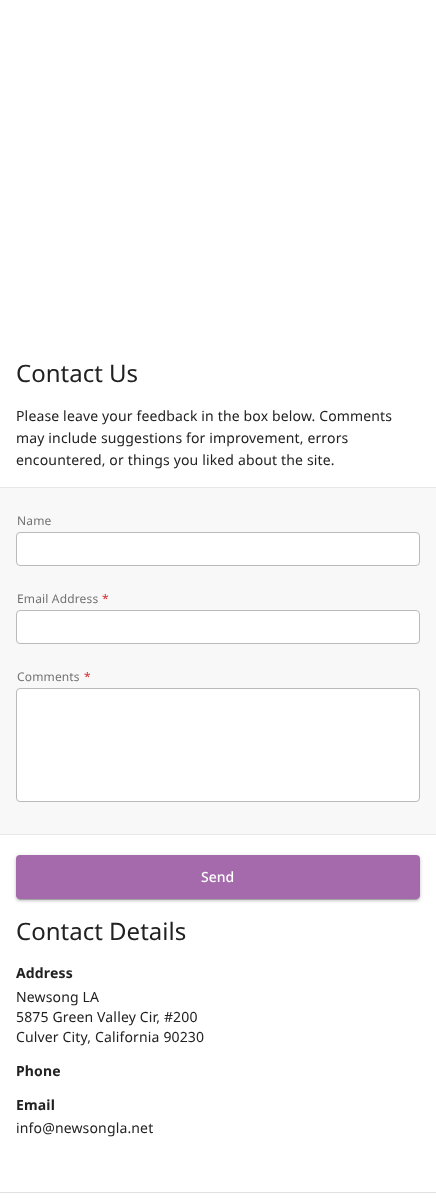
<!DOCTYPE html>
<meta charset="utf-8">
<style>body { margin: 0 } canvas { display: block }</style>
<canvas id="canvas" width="436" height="1198"></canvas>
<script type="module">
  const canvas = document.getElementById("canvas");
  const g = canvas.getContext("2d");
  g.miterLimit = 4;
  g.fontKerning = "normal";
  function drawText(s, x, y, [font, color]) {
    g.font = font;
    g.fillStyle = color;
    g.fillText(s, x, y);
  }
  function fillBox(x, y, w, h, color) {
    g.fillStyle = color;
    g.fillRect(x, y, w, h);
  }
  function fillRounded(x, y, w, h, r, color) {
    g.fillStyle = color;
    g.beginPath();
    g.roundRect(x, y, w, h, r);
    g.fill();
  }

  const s1 = ["24px Noto Sans", "#212121"];
  const s2 = ["14px Noto Sans", "#212121"];
  const s3 = ["12px Noto Sans", "#727272"];
  const s4 = ["12px Noto Sans", "#D32F2F"];
  const s5 = ["500 14px Noto Sans", "#FFFFFF"];
  const s6 = ["bold 14px Noto Sans", "#212121"];

  fillBox(0, 0, 436, 1198, "#FFFFFF");
  drawText("Contact Us", 16, 382, s1);
  g.letterSpacing = "0.15px";
  drawText("Please leave your feedback in the box below. Comments", 16, 421, s2);
  drawText("may include suggestions for improvement, errors", 16, 443, s2);
  drawText("encountered, or things you liked about the site.", 16, 465, s2);
  fillBox(0, 488, 436, 346, "#F8F8F8");
  fillBox(0, 487, 436, 1, "#E8E8E8");
  fillBox(0, 834, 436, 1, "#E8E8E8");
  drawText("Name", 17, 525, s3);
  g.fillStyle = "#FFFFFF";
  g.beginPath();
  g.roundRect(16.5, 532.5, 403, 33, 3.5);
  g.fill();
  g.strokeStyle = "#BABABA";
  g.stroke();
  drawText("Email Address", 17, 603, s3);
  drawText("*", 102, 603, s4);
  g.fillStyle = "#FFFFFF";
  g.beginPath();
  g.roundRect(16.5, 610.5, 403, 33, 3.5);
  g.fill();
  g.stroke();
  drawText("Comments", 17, 681, s3);
  drawText("*", 84, 681, s4);
  g.fillStyle = "#FFFFFF";
  g.beginPath();
  g.roundRect(16.5, 688.5, 403, 113, 3.5);
  g.fill();
  g.stroke();
  g.fillStyle = "rgba(0, 0, 0, 0.12)";
  g.filter = "blur(2.5px)";
  g.beginPath();
  g.roundRect(16, 856, 404, 44, 4);
  g.fill();
  g.filter = "none";
  g.fillStyle = "rgba(0, 0, 0, 0.14)";
  g.filter = "blur(1px)";
  g.beginPath();
  g.roundRect(16, 857, 404, 44, 4);
  g.fill();
  g.filter = "none";
  g.fillStyle = "rgba(0, 0, 0, 0.2)";
  g.filter = "blur(0.5px)";
  g.beginPath();
  g.roundRect(18, 860, 400, 40, 2);
  g.fill();
  g.filter = "none";
  fillRounded(16, 855, 404, 44, 4, "#A56AAC");
  g.letterSpacing = "0px";
  drawText("Send", 201, 882, s5);
  drawText("Contact Details", 16, 940, s1);
  g.letterSpacing = "0.15px";
  drawText("Address", 16, 978, s6);
  drawText("Newsong LA", 16, 1002, s2);
  drawText("5875 Green Valley Cir, #200", 16, 1022, s2);
  drawText("Culver City, California 90230", 16, 1042, s2);
  drawText("Phone", 16, 1076, s6);
  drawText("Email", 16, 1110, s6);
  drawText("info@newsongla.net", 16, 1133, s2);
  fillBox(0, 1192, 436, 1, "#E0E0E0");
</script>
